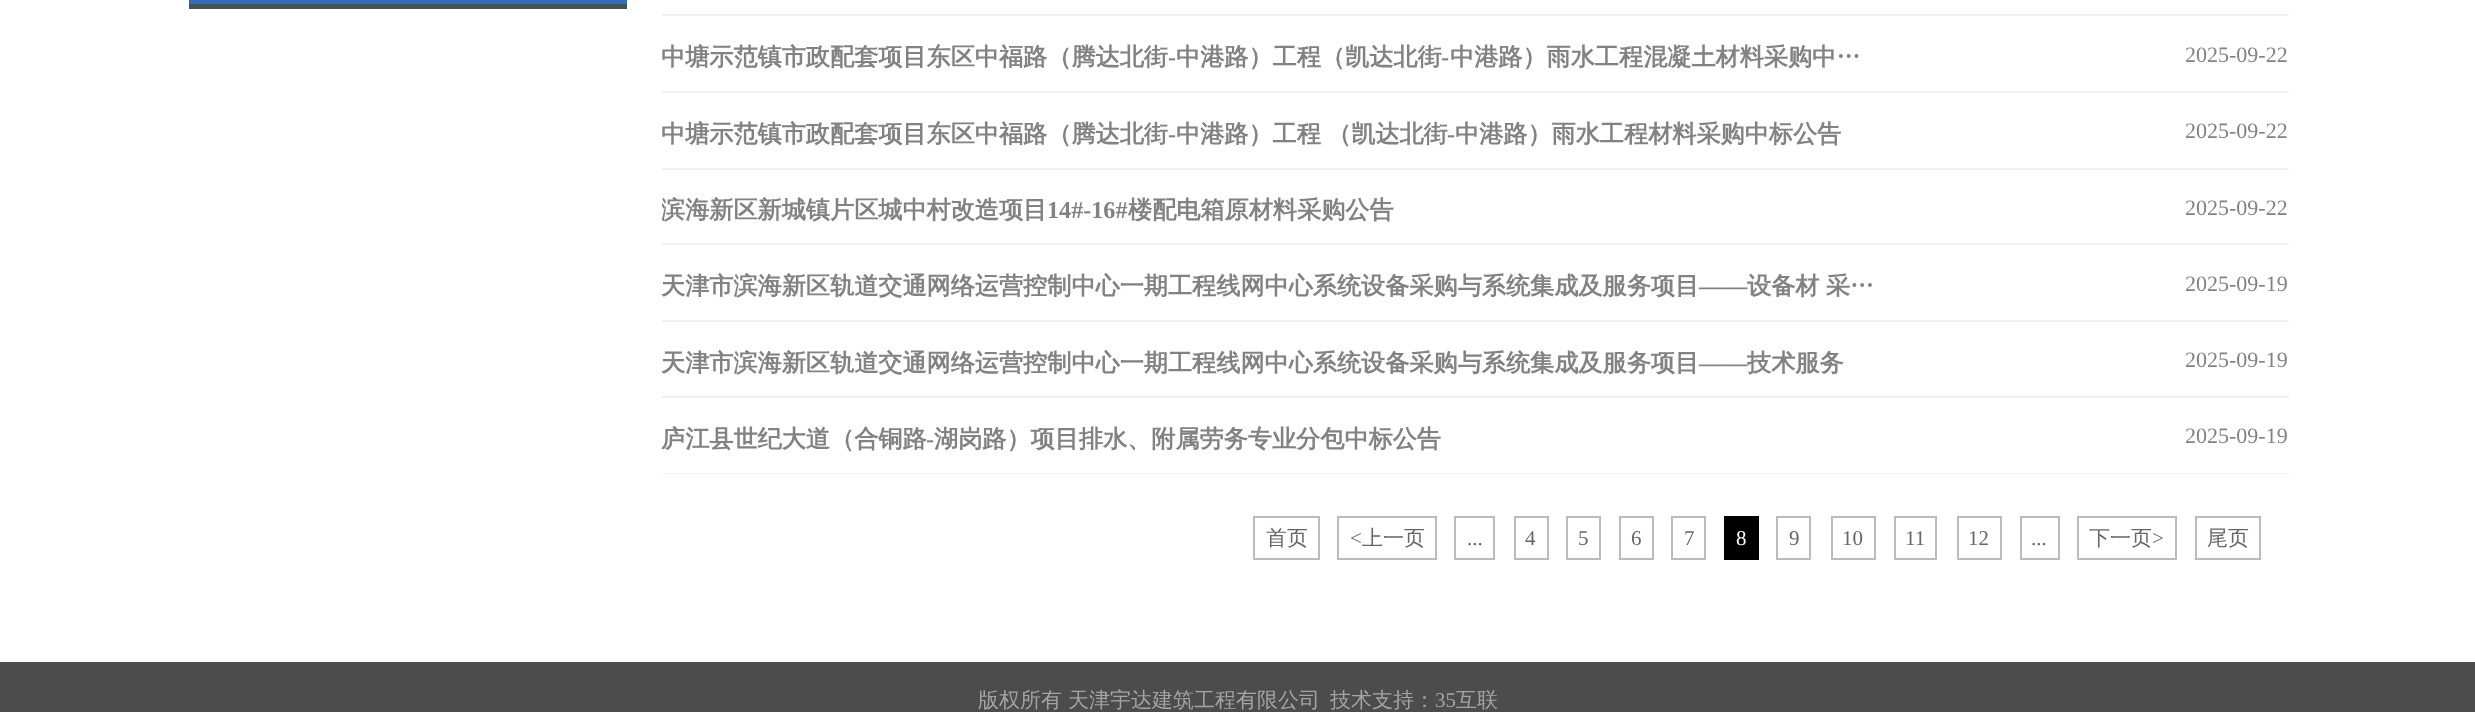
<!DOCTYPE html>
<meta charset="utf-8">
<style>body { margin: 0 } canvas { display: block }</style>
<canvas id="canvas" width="2475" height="712"></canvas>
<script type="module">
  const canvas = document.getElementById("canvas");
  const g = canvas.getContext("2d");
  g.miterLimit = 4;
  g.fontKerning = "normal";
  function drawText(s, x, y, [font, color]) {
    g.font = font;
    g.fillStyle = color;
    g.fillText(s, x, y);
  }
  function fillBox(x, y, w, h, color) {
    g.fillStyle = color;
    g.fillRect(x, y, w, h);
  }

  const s1 = ["bold 24.15px WenQuanYi Zen Hei", "#828282"];
  const s2 = ["bold 24.15px Liberation Serif", "#828282"];
  const s3 = ["22px Liberation Serif", "#828282"];
  const s4 = ["500 21px WenQuanYi Zen Hei", "#666666"];
  const s5 = ["21px Liberation Serif", "#666666"];
  const s6 = ["21px Liberation Serif", "#FFFFFF"];
  const s7 = ["500 21px WenQuanYi Zen Hei", "#A4A4A4"];
  const s8 = ["21px Liberation Serif", "#A4A4A4"];

  fillBox(0, 0, 2475, 712, "#FFFFFF");
  g.strokeStyle = "#445451";
  g.lineWidth = 5;
  g.strokeRect(191.5, -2.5, 433, 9);
  fillBox(189, 0, 438, 4, "#3869B3");
  fillBox(662, 14, 1627, 2, "#F0F0F0");
  fillBox(662, 91, 1627, 2, "#F0F0F0");
  drawText("中塘示范镇市政配套项目东区中福路（腾达北街", 661, 65, s1);
  drawText("-", 1168, 65, s2);
  drawText("中港路）工程（凯达北街", 1176, 65, s1);
  drawText("-", 1441, 65, s2);
  drawText("中港路）雨水工程混凝土材料采购中…", 1450, 65, s1);
  drawText("2025-09-22", 2185, 62, s3);
  fillBox(662, 168, 1627, 2, "#F0F0F0");
  drawText("中塘示范镇市政配套项目东区中福路（腾达北街", 661, 142, s1);
  drawText("-", 1168, 142, s2);
  drawText("中港路）工程", 1176, 142, s1);
  drawText("（凯达北街", 1327, 142, s1);
  drawText("-", 1447, 142, s2);
  drawText("中港路）雨水工程材料采购中标公告", 1455, 142, s1);
  drawText("2025-09-22", 2185, 138, s3);
  fillBox(662, 243, 1627, 2, "#F0F0F0");
  g.save();
  g.beginPath();
  g.rect(662, 187, 1219, 48);
  g.clip();
  drawText("滨海新区新城镇片区城中村改造项目", 661, 218, s1);
  g.restore();
  drawText("14#-16#", 1047, 218, s2);
  drawText("楼配电箱原材料采购公告", 1128, 218, s1);
  drawText("2025-09-22", 2185, 215, s3);
  fillBox(662, 320, 1627, 2, "#F0F0F0");
  drawText("天津市滨海新区轨道交通网络运营控制中心一期工程线网中心系统设备采购与系统集成及服务项目", 661, 294, s1);
  drawText("——", 1699, 294, s2);
  g.wordSpacing = "-1px";
  drawText("设备材 采…", 1747, 294, s1);
  g.wordSpacing = "0px";
  drawText("2025-09-19", 2185, 291, s3);
  fillBox(662, 396, 1627, 2, "#F0F0F0");
  drawText("天津市滨海新区轨道交通网络运营控制中心一期工程线网中心系统设备采购与系统集成及服务项目", 661, 371, s1);
  drawText("——", 1699, 371, s2);
  drawText("技术服务", 1747, 371, s1);
  drawText("2025-09-19", 2185, 367, s3);
  fillBox(662, 473, 1627, 1, "#F0F0F0");
  drawText("庐江县世纪大道（合铜路", 661, 447, s1);
  drawText("-", 926, 447, s2);
  drawText("湖岗路）项目排水、附属劳务专业分包中标公告", 934, 447, s1);
  drawText("2025-09-19", 2185, 443, s3);
  g.strokeStyle = "#BBBBBB";
  g.lineWidth = 2;
  g.strokeRect(1254, 517, 65, 42);
  drawText("首页", 1266, 545, s4);
  g.strokeRect(1338, 517, 98, 42);
  drawText("<", 1350, 545, s5);
  drawText("上一页", 1362, 545, s4);
  g.strokeRect(1455, 517, 39, 42);
  drawText("...", 1467, 545, s5);
  g.strokeRect(1515, 517, 33, 42);
  drawText("4", 1525, 545, s5);
  g.strokeRect(1567, 517, 33, 42);
  drawText("5", 1578, 545, s5);
  g.strokeRect(1620, 517, 33, 42);
  drawText("6", 1631, 545, s5);
  g.strokeRect(1672, 517, 33, 42);
  drawText("7", 1684, 545, s5);
  fillBox(1724, 516, 35, 44, "#000000");
  drawText("8", 1736, 545, s6);
  g.strokeRect(1777, 517, 33, 42);
  drawText("9", 1789, 545, s5);
  g.strokeRect(1832, 517, 43, 42);
  drawText("10", 1842, 545, s5);
  g.strokeRect(1895, 517, 41, 42);
  drawText("11", 1905, 545, s5);
  g.strokeRect(1958, 517, 43, 42);
  drawText("12", 1968, 545, s5);
  g.strokeRect(2021, 517, 38, 42);
  drawText("...", 2031, 545, s5);
  g.strokeRect(2078, 517, 98, 42);
  drawText("下一页", 2089, 545, s4);
  drawText(">", 2152, 545, s5);
  g.strokeRect(2196, 517, 64, 42);
  drawText("尾页", 2207, 545, s4);
  fillBox(0, 662, 2475, 50, "#4C4C4C");
  drawText("版权所有", 978, 707, s7);
  drawText("天津宇达建筑工程有限公司", 1068, 707, s7);
  drawText("技术支持：", 1330, 707, s7);
  drawText("35", 1435, 707, s8);
  drawText("互联", 1456, 707, s7);
</script>
